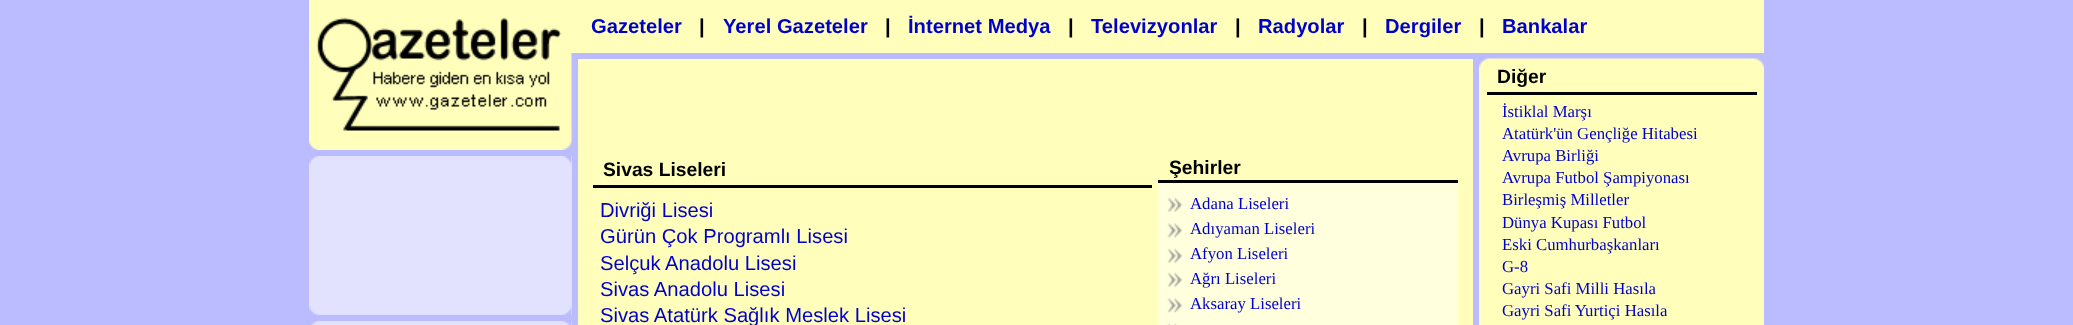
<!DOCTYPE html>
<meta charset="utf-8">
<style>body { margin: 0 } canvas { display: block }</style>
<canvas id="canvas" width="2073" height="325"></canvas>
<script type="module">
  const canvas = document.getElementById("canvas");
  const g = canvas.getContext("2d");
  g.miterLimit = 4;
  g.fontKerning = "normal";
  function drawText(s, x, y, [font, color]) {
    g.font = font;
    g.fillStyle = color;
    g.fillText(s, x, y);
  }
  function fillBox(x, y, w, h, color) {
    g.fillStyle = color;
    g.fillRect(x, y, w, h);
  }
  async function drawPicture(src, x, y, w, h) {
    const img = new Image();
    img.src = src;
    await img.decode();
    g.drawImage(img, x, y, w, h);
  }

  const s1 = ["bold 20.2px Liberation Sans", "#0000CC"];
  const s2 = ["bold 20.2px Liberation Sans", "#000000"];
  const s3 = ["bold 19.25px Liberation Sans", "#000000"];
  const s4 = ["20.2px Liberation Sans", "#0000CC"];
  const s5 = ["16.75px Liberation Serif", "#0000CC"];

  fillBox(0, 0, 2073, 325, "#BBBBFF");
  fillBox(309, 0, 1455, 53, "#FFFFBB");
  drawText("Gazeteler", 591, 33, s1);
  drawText("|", 699, 33, s2);
  drawText("Yerel Gazeteler", 723, 33, s1);
  drawText("|", 885, 33, s2);
  drawText("İnternet Medya", 908, 33, s1);
  drawText("|", 1068, 33, s2);
  drawText("Televizyonlar", 1091, 33, s1);
  drawText("|", 1235, 33, s2);
  drawText("Radyolar", 1258, 33, s1);
  drawText("|", 1362, 33, s2);
  drawText("Dergiler", 1385, 33, s1);
  drawText("|", 1479, 33, s2);
  drawText("Bankalar", 1502, 33, s1);
  await drawPicture("pic1.png", 309, 17, 263, 133);
  fillBox(309, 156, 263, 159, "#E2E2FF");
  await drawPicture("pic2.png", 309, 156, 263, 9);
  await drawPicture("pic3.png", 309, 306, 263, 9);
  fillBox(571, 321, 1, 4, "#E2E2FF");
  await drawPicture("pic4.png", 309, 321, 263, 4);
  fillBox(578, 59, 895, 266, "#FFFFBB");
  fillBox(593, 185, 559, 3, "#000000");
  drawText("Sivas Liseleri", 603, 176, s3);
  drawText("Divriği Lisesi", 600, 217, s4);
  drawText("Gürün Çok Programlı Lisesi", 600, 243, s4);
  drawText("Selçuk Anadolu Lisesi", 600, 270, s4);
  drawText("Sivas Anadolu Lisesi", 600, 296, s4);
  drawText("Sivas Atatürk Sağlık Meslek Lisesi", 600, 322, s4);
  fillBox(1158, 180, 300, 3, "#000000");
  drawText("Şehirler", 1169, 174, s3);
  fillBox(1158, 183, 300, 142, "#FFFFDD");
  await drawPicture("pic5.png", 1167, 197, 16, 15);
  drawText("Adana Liseleri", 1190, 209, s5);
  await drawPicture("pic6.png", 1167, 223, 16, 15);
  drawText("Adıyaman Liseleri", 1190, 234, s5);
  await drawPicture("pic5.png", 1167, 248, 16, 15);
  drawText("Afyon Liseleri", 1190, 259, s5);
  await drawPicture("pic5.png", 1167, 272, 16, 15);
  drawText("Ağrı Liseleri", 1190, 284, s5);
  await drawPicture("pic6.png", 1167, 298, 16, 15);
  drawText("Aksaray Liseleri", 1190, 309, s5);
  await drawPicture("pic7.png", 1167, 323, 10, 2);
  fillBox(1479, 67, 285, 258, "#FFFFBB");
  await drawPicture("pic8.png", 1479, 58, 285, 10);
  fillBox(1487, 92, 270, 3, "#000000");
  drawText("Diğer", 1497, 83, s3);
  drawText("İstiklal Marşı", 1502, 117, s5);
  drawText("Atatürk'ün Gençliğe Hitabesi", 1502, 139, s5);
  drawText("Avrupa Birliği", 1502, 161, s5);
  drawText("Avrupa Futbol Şampiyonası", 1502, 183, s5);
  drawText("Birleşmiş Milletler", 1502, 205, s5);
  drawText("Dünya Kupası Futbol", 1502, 228, s5);
  drawText("Eski Cumhurbaşkanları", 1502, 250, s5);
  drawText("G-8", 1502, 272, s5);
  drawText("Gayri Safi Milli Hasıla", 1502, 294, s5);
  drawText("Gayri Safi Yurtiçi Hasıla", 1502, 316, s5);
</script>
